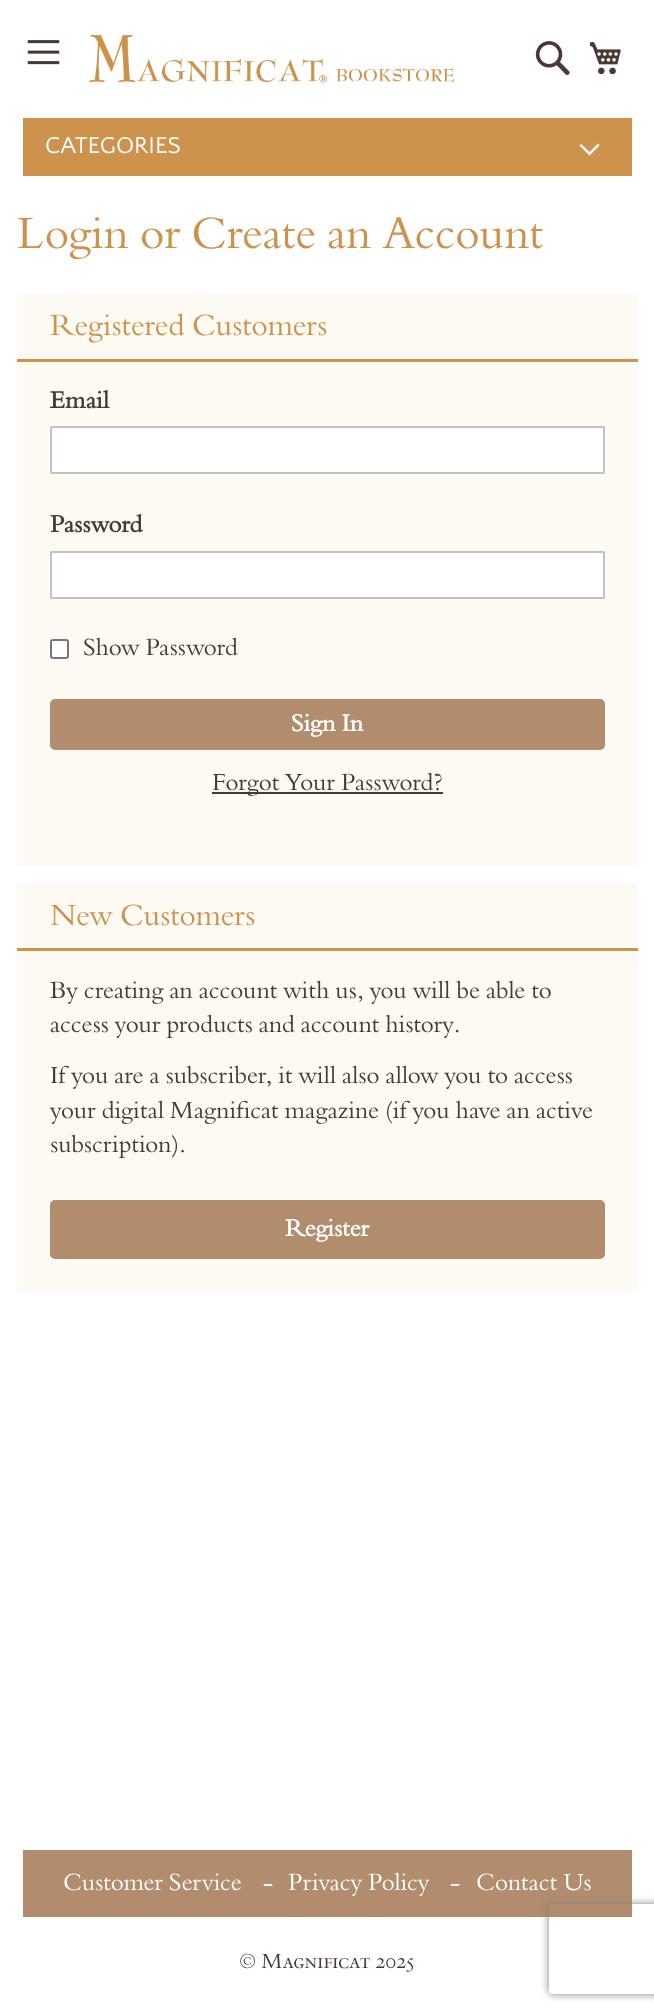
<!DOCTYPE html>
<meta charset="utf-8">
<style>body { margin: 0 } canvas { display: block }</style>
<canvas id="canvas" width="654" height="2014"></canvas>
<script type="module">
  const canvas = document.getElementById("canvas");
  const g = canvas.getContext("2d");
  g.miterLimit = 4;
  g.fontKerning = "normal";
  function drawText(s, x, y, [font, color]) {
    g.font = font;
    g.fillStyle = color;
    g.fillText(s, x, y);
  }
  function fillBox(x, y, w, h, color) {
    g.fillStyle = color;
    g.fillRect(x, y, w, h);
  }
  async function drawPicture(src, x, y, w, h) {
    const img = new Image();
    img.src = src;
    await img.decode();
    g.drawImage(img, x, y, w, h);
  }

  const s1 = ["24px Quattrocento Sans", "#FFFFFF"];
  const s2 = ["45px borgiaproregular", "#CD924B"];
  const s3 = ["30px borgiaproregular", "#CD924B"];
  const s4 = ["bold 24px borgiaproregular", "#483935"];
  const s5 = ["24px borgiaproregular", "#483935"];
  const s6 = ["bold 24px borgiaproregular", "#FFFFFF"];
  const s7 = ["24px borgiaproregular", "#FFFFFF"];
  const s8 = ["21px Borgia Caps", "#483935"];

  fillBox(0, 0, 654, 2014, "#FFFFFF");
  await drawPicture("pic1.png", 27, 40, 33, 25);
  await drawPicture("pic2.png", 89, 35, 365, 48);
  await drawPicture("pic3.png", 535, 41, 35, 34);
  await drawPicture("pic4.png", 589, 41, 32, 34);
  fillBox(23, 118, 609, 58, "#CD924B");
  drawText("CATEGORIES", 45, 153, s1);
  g.beginPath();
  g.moveTo(589.5, 152);
  g.lineTo(581, 144);
  g.lineTo(579.5, 145.5);
  g.lineTo(589.5, 155.5);
  g.lineTo(599.5, 145.5);
  g.lineTo(598, 143.5);
  g.closePath();
  g.fill();
  drawText("Login or Create an Account", 17, 248, s2);
  fillBox(17, 293, 621, 573, "#FDFAF3");
  fillBox(17, 359, 621, 3, "#CD924B");
  drawText("Registered Customers", 50, 335, s3);
  drawText("Email", 50, 408, s4);
  g.fillStyle = "#FFFFFF";
  g.beginPath();
  g.roundRect(51, 427, 553, 46, 0.5);
  g.fill();
  g.strokeStyle = "#C2C2C2";
  g.lineWidth = 2;
  g.stroke();
  drawText("Password", 50, 532, s4);
  g.fillStyle = "#FFFFFF";
  g.beginPath();
  g.roundRect(51, 552, 553, 46, 0.5);
  g.fill();
  g.stroke();
  g.beginPath();
  g.roundRect(51, 640, 17, 18, 2);
  g.fill();
  g.strokeStyle = "#767676";
  g.stroke();
  drawText("Show Password", 83, 655, s5);
  g.fillStyle = "#B18C6D";
  g.beginPath();
  g.roundRect(51, 700, 553, 49, 4);
  g.fill();
  g.strokeStyle = "#B18C6D";
  g.stroke();
  drawText("Sign In", 291, 731, s6);
  fillBox(212, 792, 231, 2, "#483935");
  drawText("Forgot Your Password?", 212, 790, s5);
  fillBox(17, 882, 621, 410, "#FDFAF3");
  fillBox(17, 948, 621, 3, "#CD924B");
  drawText("New Customers", 50, 925, s3);
  drawText("By creating an account with us, you will be able to", 50, 998, s5);
  drawText("access your products and account history.", 50, 1032, s5);
  drawText("If you are a subscriber, it will also allow you to access", 50, 1083, s5);
  drawText("your digital Magnificat magazine (if you have an active", 50, 1118, s5);
  drawText("subscription).", 50, 1152, s5);
  g.fillStyle = "#B18C6D";
  g.beginPath();
  g.roundRect(51, 1201, 553, 57, 4);
  g.fill();
  g.stroke();
  drawText("Register", 285, 1236, s6);
  fillBox(23, 1850, 609, 67, "#B18C6D");
  drawText("Customer Service", 63, 1890, s7);
  drawText("-", 263, 1890, s7);
  drawText("Privacy Policy", 288, 1890, s7);
  drawText("-", 450, 1890, s7);
  drawText("Contact Us", 476, 1890, s7);
  drawText("© Magnificat 2025", 239, 1968, s8);
  g.save();
  g.beginPath();
  g.moveTo(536, 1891);
  g.lineTo(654, 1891);
  g.lineTo(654, 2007);
  g.lineTo(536, 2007);
  g.closePath();
  g.moveTo(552, 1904);
  g.lineTo(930, 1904);
  g.bezierCurveTo(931.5, 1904, 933, 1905.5, 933, 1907);
  g.lineTo(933, 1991);
  g.bezierCurveTo(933, 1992.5, 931.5, 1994, 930, 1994);
  g.lineTo(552, 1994);
  g.bezierCurveTo(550.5, 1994, 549, 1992.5, 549, 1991);
  g.lineTo(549, 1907);
  g.bezierCurveTo(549, 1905.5, 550.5, 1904, 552, 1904);
  g.closePath();
  g.clip("evenodd");
  g.fillStyle = "#808080";
  g.filter = "blur(4px)";
  g.beginPath();
  g.roundRect(549, 1904, 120, 90, 3);
  g.fill();
  g.filter = "none";
  g.restore();
</script>
